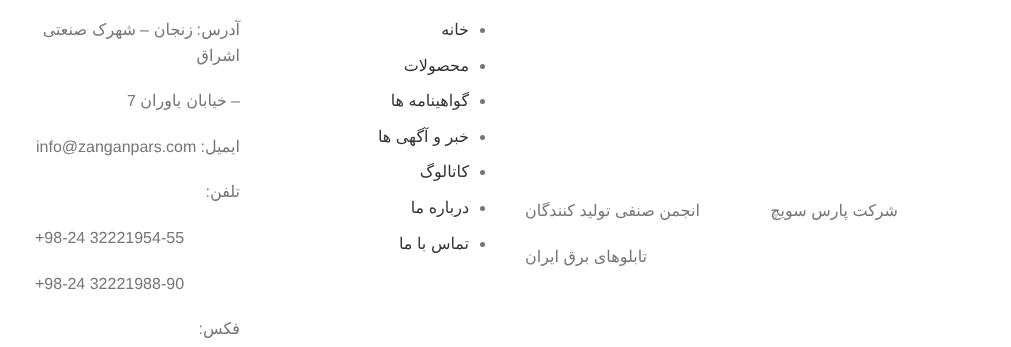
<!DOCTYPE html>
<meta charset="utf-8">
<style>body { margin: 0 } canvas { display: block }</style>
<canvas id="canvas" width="1011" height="347"></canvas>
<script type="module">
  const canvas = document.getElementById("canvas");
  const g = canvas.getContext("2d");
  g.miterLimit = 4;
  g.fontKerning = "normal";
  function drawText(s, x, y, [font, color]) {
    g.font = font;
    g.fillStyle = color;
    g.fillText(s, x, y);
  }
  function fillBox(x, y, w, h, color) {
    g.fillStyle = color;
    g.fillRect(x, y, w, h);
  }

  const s1 = ["16px DejaVu Sans", "#767676"];
  const s2 = ["16px DejaVu Sans", "#333333"];
  const s3 = ["16px Liberation Sans", "#767676"];

  fillBox(0, 0, 1011, 347, "#FFFFFF");
  g.wordSpacing = "-0.5px";
  g.direction = "rtl";
  drawText("شرکت پارس سویچ", 898, 216, s1);
  drawText("انجمن صنفی تولید کنندگان", 700, 216, s1);
  drawText("تابلوهای برق ایران", 647, 262, s1);
  g.beginPath();
  g.arc(482.5, 30.5, 2.5, 0, Math.PI * 2);
  g.fill();
  g.wordSpacing = "0px";
  drawText("خانه", 469, 35, s2);
  g.fillStyle = "#767676";
  g.beginPath();
  g.arc(482.5, 66.5, 2.5, 0, Math.PI * 2);
  g.fill();
  drawText("محصولات", 469, 71, s2);
  g.fillStyle = "#767676";
  g.beginPath();
  g.arc(482.5, 101.5, 2.5, 0, Math.PI * 2);
  g.fill();
  g.wordSpacing = "-0.5px";
  drawText("گواهینامه ها", 469, 106, s2);
  g.fillStyle = "#767676";
  g.beginPath();
  g.arc(482.5, 137.5, 2.5, 0, Math.PI * 2);
  g.fill();
  drawText("خبر و آگهی ها", 469, 142, s2);
  g.fillStyle = "#767676";
  g.beginPath();
  g.arc(482.5, 172.5, 2.5, 0, Math.PI * 2);
  g.fill();
  g.wordSpacing = "0px";
  drawText("کاتالوگ", 469, 177, s2);
  g.fillStyle = "#767676";
  g.beginPath();
  g.arc(482.5, 208.5, 2.5, 0, Math.PI * 2);
  g.fill();
  g.wordSpacing = "-0.5px";
  drawText("درباره ما", 469, 213, s2);
  g.fillStyle = "#767676";
  g.beginPath();
  g.arc(482.5, 244.5, 2.5, 0, Math.PI * 2);
  g.fill();
  drawText("تماس با ما", 469, 249, s2);
  g.wordSpacing = "0px";
  drawText("آدرس", 240, 35, s1);
  drawText(":", 201, 35, s3);
  drawText("زنجان", 193, 35, s1);
  drawText("–", 149, 35, s3);
  drawText("شهرک صنعتی", 136, 35, s1);
  drawText("اشراق", 240, 61, s1);
  drawText("–", 240, 106, s3);
  drawText("خیابان یاوران", 227, 106, s1);
  g.direction = "ltr";
  drawText("7", 127, 106, s3);
  g.direction = "rtl";
  drawText("ایمیل", 240, 152, s1);
  drawText(":", 205, 152, s3);
  g.direction = "ltr";
  drawText("info@zanganpars.com", 36, 152, s3);
  g.direction = "rtl";
  drawText("تلفن", 240, 197, s1);
  drawText(":", 210, 197, s3);
  g.direction = "ltr";
  drawText("+98-24 32221954-55", 35, 243, s3);
  drawText("+98-24 32221988-90", 35, 289, s3);
  g.direction = "rtl";
  drawText("فکس", 240, 334, s1);
  drawText(":", 203, 334, s3);
</script>
